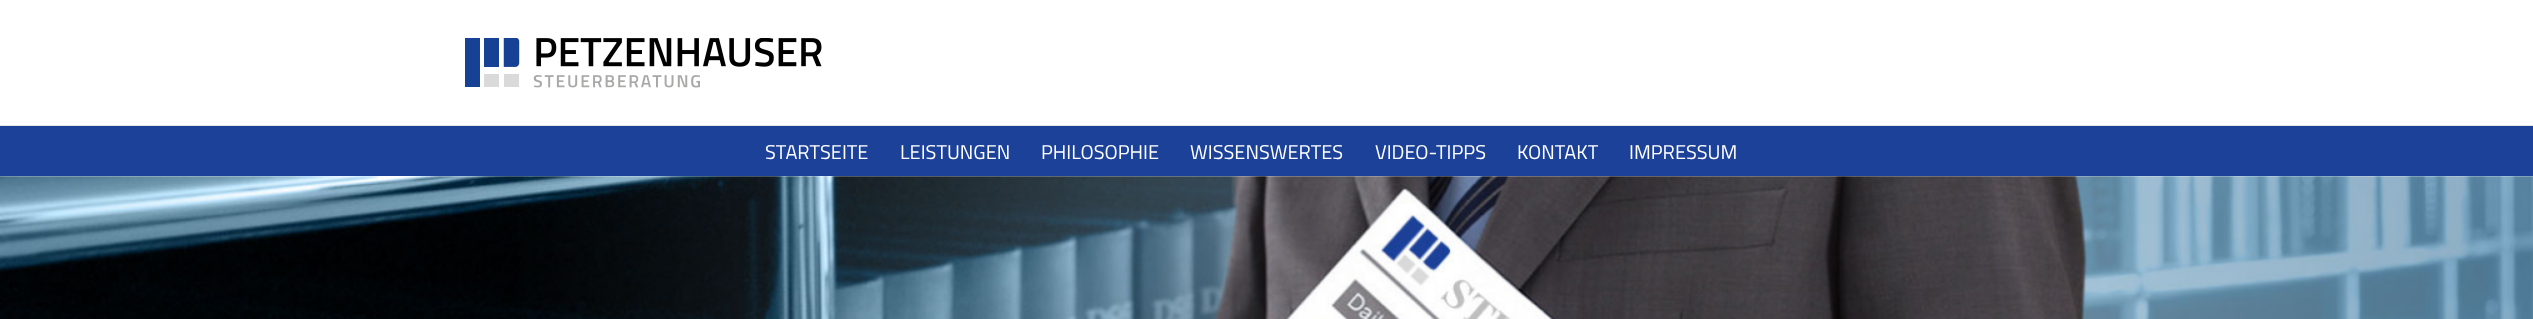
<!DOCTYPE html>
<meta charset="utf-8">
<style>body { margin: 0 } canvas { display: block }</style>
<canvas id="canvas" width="2533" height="319"></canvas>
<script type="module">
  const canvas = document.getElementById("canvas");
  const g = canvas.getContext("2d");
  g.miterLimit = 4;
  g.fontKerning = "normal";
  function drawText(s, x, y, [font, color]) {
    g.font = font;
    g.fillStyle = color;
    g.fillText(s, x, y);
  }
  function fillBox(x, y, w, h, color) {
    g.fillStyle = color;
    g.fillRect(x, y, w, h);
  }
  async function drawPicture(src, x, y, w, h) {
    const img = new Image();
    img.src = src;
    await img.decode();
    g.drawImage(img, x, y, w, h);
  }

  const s1 = ["20px Titillium Web", "#FFFFFF"];

  fillBox(0, 0, 2533, 319, "#FFFFFF");
  fillBox(0, 125, 2533, 1, "#E5E5E5");
  await drawPicture("pic1.png", 465, 38, 357, 50);
  fillBox(0, 126, 2533, 50, "#1C4199");
  drawText("STARTSEITE", 765, 159, s1);
  drawText("LEISTUNGEN", 900, 159, s1);
  drawText("PHILOSOPHIE", 1041, 159, s1);
  drawText("WISSENSWERTES", 1190, 159, s1);
  drawText("VIDEO-TIPPS", 1375, 159, s1);
  drawText("KONTAKT", 1517, 159, s1);
  drawText("IMPRESSUM", 1629, 159, s1);
  await drawPicture("pic2.png", 0, 176, 2533, 143);
</script>
